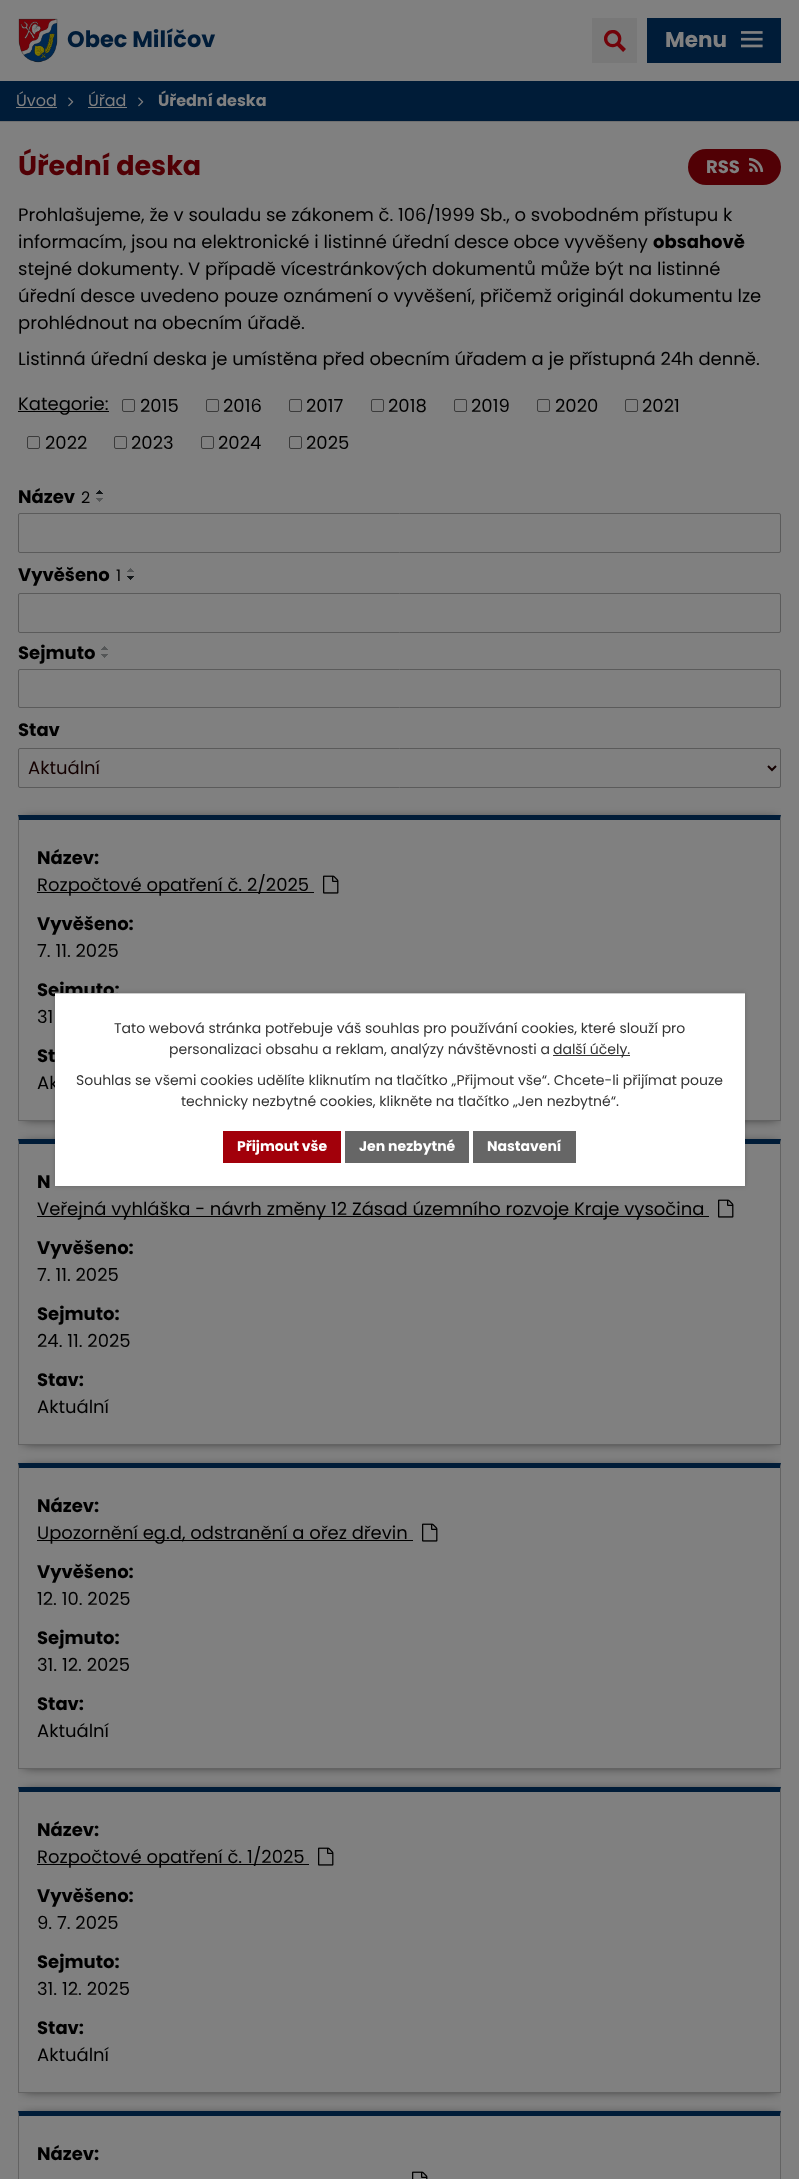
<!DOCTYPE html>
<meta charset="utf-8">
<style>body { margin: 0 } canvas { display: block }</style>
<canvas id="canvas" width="799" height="2179"></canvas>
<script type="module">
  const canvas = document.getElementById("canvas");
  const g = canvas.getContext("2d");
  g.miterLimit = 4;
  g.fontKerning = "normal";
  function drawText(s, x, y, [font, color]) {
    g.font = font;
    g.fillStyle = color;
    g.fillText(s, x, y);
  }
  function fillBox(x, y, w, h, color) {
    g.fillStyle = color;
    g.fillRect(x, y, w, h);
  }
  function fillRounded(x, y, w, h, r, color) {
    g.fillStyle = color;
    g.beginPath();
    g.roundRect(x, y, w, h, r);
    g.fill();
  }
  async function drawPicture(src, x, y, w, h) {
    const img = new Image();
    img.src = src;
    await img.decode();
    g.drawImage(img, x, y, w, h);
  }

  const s1 = ["bold 22.5px Poppins", "#001C38"];
  const s2 = ["bold 21.5px Poppins", "#808080"];
  const s3 = ["16px Poppins", "#808080"];
  const s4 = ["bold 16px Poppins", "#808080"];
  const s5 = ["bold 27px Poppins", "#510005"];
  const s6 = ["bold 18px Poppins", "#808080"];
  const s7 = ["18px Poppins", "#000000"];
  const s8 = ["bold 18px Poppins", "#000000"];
  const s9 = ["16px Poppins", "#000000"];
  const s10 = ["18px Poppins", "#130000"];
  const s11 = ["14px Poppins", "#333333"];
  const s12 = ["bold 14px Poppins", "#FFFFFF"];

  fillBox(0, 0, 799, 2179, "#808080");
  await drawPicture("pic1.png", 18, 18, 40, 45);
  drawText("Obec Milíčov", 67, 47, s1);
  fillBox(592, 18, 45, 45, "#787878");
  await drawPicture("pic2.png", 604, 30, 22, 22);
  fillBox(647, 18, 134, 45, "#001C38");
  drawText("Menu", 665, 47, s2);
  await drawPicture("pic3.png", 741, 31, 22, 17);
  fillBox(0, 81, 799, 40, "#001C38");
  fillBox(0, 121, 799, 1, "#707070");
  drawText("Úvod", 16, 106, s3);
  fillBox(16, 107, 41, 1, "#808080");
  await drawPicture("pic4.png", 68, 97, 6, 10);
  drawText("Úřad", 88, 106, s3);
  fillBox(88, 107, 39, 1, "#808080");
  await drawPicture("pic4.png", 138, 97, 6, 10);
  drawText("Úřední deska", 158, 106, s4);
  drawText("Úřední deska", 18, 175, s5);
  fillRounded(688, 149, 93, 36, 18, "#510005");
  drawText("RSS", 706, 173, s6);
  await drawPicture("pic5.png", 749, 157, 15, 15);
  drawText("Prohlašujeme, že v souladu se zákonem č. 106/1999 Sb., o svobodném přístupu k", 18, 221, s7);
  drawText("informacím, jsou na elektronické i listinné úřední desce obce vyvěšeny", 18, 248, s7);
  drawText("obsahově", 653, 248, s8);
  drawText("stejné dokumenty. V případě vícestránkových dokumentů může být na listinné", 18, 275, s7);
  drawText("úřední desce uvedeno pouze oznámení o vyvěšení, přičemž originál dokumentu lze", 18, 302, s7);
  drawText("prohlédnout na obecním úřadě.", 18, 329, s7);
  drawText("Listinná úřední deska je umístěna před obecním úřadem a je přístupná 24h denně.", 18, 365, s7);
  fillBox(18, 411, 91, 1, "#000000");
  drawText("Kategorie:", 18, 410, s7);
  g.beginPath();
  g.roundRect(122.5, 399.5, 12, 12, 1.5);
  g.strokeStyle = "#3B3B3B";
  g.stroke();
  drawText("2015", 140, 412, s7);
  g.beginPath();
  g.roundRect(206.5, 399.5, 12, 12, 1.5);
  g.stroke();
  drawText("2016", 223, 412, s7);
  g.beginPath();
  g.roundRect(289.5, 399.5, 12, 12, 1.5);
  g.stroke();
  drawText("2017", 306, 412, s7);
  g.beginPath();
  g.roundRect(371.5, 399.5, 12, 12, 1.5);
  g.stroke();
  drawText("2018", 388, 412, s7);
  g.beginPath();
  g.roundRect(454.5, 399.5, 12, 12, 1.5);
  g.stroke();
  drawText("2019", 471, 412, s7);
  g.beginPath();
  g.roundRect(537.5, 399.5, 12, 12, 1.5);
  g.stroke();
  drawText("2020", 555, 412, s7);
  g.beginPath();
  g.roundRect(625.5, 399.5, 12, 12, 1.5);
  g.stroke();
  drawText("2021", 642, 412, s7);
  g.beginPath();
  g.roundRect(27.5, 436.5, 12, 12, 1.5);
  g.stroke();
  drawText("2022", 45, 449, s7);
  g.beginPath();
  g.roundRect(114.5, 436.5, 12, 12, 1.5);
  g.stroke();
  drawText("2023", 131, 449, s7);
  g.beginPath();
  g.roundRect(201.5, 436.5, 12, 12, 1.5);
  g.stroke();
  drawText("2024", 218, 449, s7);
  g.beginPath();
  g.roundRect(289.5, 436.5, 12, 12, 1.5);
  g.stroke();
  drawText("2025", 306, 449, s7);
  drawText("Název", 18, 503, s8);
  drawText("2", 81, 503, s9);
  await drawPicture("pic6.png", 96, 490, 7, 4);
  await drawPicture("pic7.png", 96, 498, 7, 4);
  drawText("Vyvěšeno", 18, 581, s8);
  drawText("1", 116, 581, s9);
  await drawPicture("pic8.png", 127, 568, 7, 4);
  await drawPicture("pic9.png", 127, 576, 7, 4);
  drawText("Sejmuto", 18, 659, s8);
  await drawPicture("pic8.png", 101, 646, 7, 4);
  await drawPicture("pic7.png", 101, 654, 7, 4);
  drawText("Stav", 18, 736, s8);
  g.beginPath();
  g.roundRect(18.5, 513.5, 762, 39, 1.5);
  g.strokeStyle = "#5B5B5B";
  g.stroke();
  g.beginPath();
  g.roundRect(18.5, 593.5, 762, 39, 1.5);
  g.stroke();
  g.beginPath();
  g.roundRect(18.5, 669.5, 762, 38, 1.5);
  g.stroke();
  g.beginPath();
  g.roundRect(18.5, 748.5, 762, 39, 1.5);
  g.stroke();
  g.beginPath();
  g.moveTo(768, 766);
  g.lineTo(772, 770);
  g.lineTo(776, 766);
  g.strokeStyle = "#130000";
  g.lineWidth = 2;
  g.stroke();
  drawText("Aktuální", 28, 774, s10);
  g.save();
  g.beginPath();
  g.rect(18, 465, 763, 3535);
  g.clip();
  g.beginPath();
  g.moveTo(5, 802);
  g.lineTo(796, 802);
  g.lineTo(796, 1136);
  g.lineTo(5, 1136);
  g.closePath();
  g.moveTo(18, 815);
  g.lineTo(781, 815);
  g.lineTo(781, 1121);
  g.lineTo(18, 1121);
  g.closePath();
  g.clip("evenodd");
  g.fillStyle = "#000000";
  g.filter = "blur(6px)";
  g.beginPath();
  g.rect(24, 821, 753, 296);
  g.fill();
  g.filter = "none";
  g.restore();
  g.fillStyle = "#001C38";
  g.beginPath();
  g.moveTo(18, 815);
  g.lineTo(781, 815);
  g.lineTo(780, 820);
  g.lineTo(19, 820);
  g.closePath();
  g.fill();
  g.fillStyle = "#636363";
  g.beginPath();
  g.moveTo(781, 815);
  g.lineTo(781, 1121);
  g.lineTo(780, 1120);
  g.lineTo(780, 820);
  g.closePath();
  g.fill();
  fillBox(18, 1120, 763, 1, "#636363");
  g.beginPath();
  g.moveTo(18, 1121);
  g.lineTo(18, 815);
  g.lineTo(19, 820);
  g.lineTo(19, 1120);
  g.closePath();
  g.fill();
  drawText("Název:", 37, 864, s8);
  fillBox(37, 892, 277, 1, "#000000");
  drawText("Rozpočtové opatření č. 2/2025", 37, 891, s7);
  await drawPicture("pic10.png", 323, 875, 16, 19);
  drawText("Vyvěšeno:", 37, 930, s8);
  drawText("7. 11. 2025", 37, 957, s7);
  drawText("Sejmuto:", 37, 996, s8);
  drawText("31", 37, 1023, s7);
  drawText("St", 37, 1062, s8);
  drawText("Ak", 37, 1089, s7);
  g.save();
  g.beginPath();
  g.rect(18, 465, 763, 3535);
  g.clip();
  g.beginPath();
  g.moveTo(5, 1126);
  g.lineTo(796, 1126);
  g.lineTo(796, 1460);
  g.lineTo(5, 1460);
  g.closePath();
  g.moveTo(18, 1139);
  g.lineTo(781, 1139);
  g.lineTo(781, 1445);
  g.lineTo(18, 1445);
  g.closePath();
  g.clip("evenodd");
  g.filter = "blur(6px)";
  g.beginPath();
  g.rect(24, 1145, 753, 296);
  g.fill();
  g.filter = "none";
  g.restore();
  g.fillStyle = "#001C38";
  g.beginPath();
  g.moveTo(18, 1139);
  g.lineTo(781, 1139);
  g.lineTo(780, 1144);
  g.lineTo(19, 1144);
  g.closePath();
  g.fill();
  g.fillStyle = "#636363";
  g.beginPath();
  g.moveTo(781, 1139);
  g.lineTo(781, 1445);
  g.lineTo(780, 1444);
  g.lineTo(780, 1144);
  g.closePath();
  g.fill();
  fillBox(18, 1444, 763, 1, "#636363");
  g.beginPath();
  g.moveTo(18, 1445);
  g.lineTo(18, 1139);
  g.lineTo(19, 1144);
  g.lineTo(19, 1444);
  g.closePath();
  g.fill();
  drawText("N", 37, 1188, s8);
  fillBox(37, 1216, 672, 1, "#000000");
  drawText("Veřejná vyhláška - návrh změny 12 Zásad územního rozvoje Kraje vysočina", 37, 1215, s7);
  await drawPicture("pic10.png", 718, 1199, 16, 19);
  drawText("Vyvěšeno:", 37, 1254, s8);
  drawText("7. 11. 2025", 37, 1281, s7);
  drawText("Sejmuto:", 37, 1320, s8);
  drawText("24. 11. 2025", 37, 1347, s7);
  drawText("Stav:", 37, 1386, s8);
  drawText("Aktuální", 37, 1413, s7);
  g.save();
  g.beginPath();
  g.rect(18, 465, 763, 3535);
  g.clip();
  g.beginPath();
  g.moveTo(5, 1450);
  g.lineTo(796, 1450);
  g.lineTo(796, 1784);
  g.lineTo(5, 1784);
  g.closePath();
  g.moveTo(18, 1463);
  g.lineTo(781, 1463);
  g.lineTo(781, 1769);
  g.lineTo(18, 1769);
  g.closePath();
  g.clip("evenodd");
  g.filter = "blur(6px)";
  g.beginPath();
  g.rect(24, 1469, 753, 296);
  g.fill();
  g.filter = "none";
  g.restore();
  g.fillStyle = "#001C38";
  g.beginPath();
  g.moveTo(18, 1463);
  g.lineTo(781, 1463);
  g.lineTo(780, 1468);
  g.lineTo(19, 1468);
  g.closePath();
  g.fill();
  g.fillStyle = "#636363";
  g.beginPath();
  g.moveTo(781, 1463);
  g.lineTo(781, 1769);
  g.lineTo(780, 1768);
  g.lineTo(780, 1468);
  g.closePath();
  g.fill();
  fillBox(18, 1768, 763, 1, "#636363");
  g.beginPath();
  g.moveTo(18, 1769);
  g.lineTo(18, 1463);
  g.lineTo(19, 1468);
  g.lineTo(19, 1768);
  g.closePath();
  g.fill();
  drawText("Název:", 37, 1512, s8);
  fillBox(37, 1540, 376, 1, "#000000");
  drawText("Upozornění eg.d, odstranění a ořez dřevin", 37, 1539, s7);
  await drawPicture("pic10.png", 422, 1523, 16, 19);
  drawText("Vyvěšeno:", 37, 1578, s8);
  drawText("12. 10. 2025", 37, 1605, s7);
  drawText("Sejmuto:", 37, 1644, s8);
  drawText("31. 12. 2025", 37, 1671, s7);
  drawText("Stav:", 37, 1710, s8);
  drawText("Aktuální", 37, 1737, s7);
  g.save();
  g.beginPath();
  g.rect(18, 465, 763, 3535);
  g.clip();
  g.beginPath();
  g.moveTo(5, 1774);
  g.lineTo(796, 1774);
  g.lineTo(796, 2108);
  g.lineTo(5, 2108);
  g.closePath();
  g.moveTo(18, 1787);
  g.lineTo(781, 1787);
  g.lineTo(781, 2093);
  g.lineTo(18, 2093);
  g.closePath();
  g.clip("evenodd");
  g.filter = "blur(6px)";
  g.beginPath();
  g.rect(24, 1793, 753, 296);
  g.fill();
  g.filter = "none";
  g.restore();
  g.fillStyle = "#001C38";
  g.beginPath();
  g.moveTo(18, 1787);
  g.lineTo(781, 1787);
  g.lineTo(780, 1792);
  g.lineTo(19, 1792);
  g.closePath();
  g.fill();
  g.fillStyle = "#636363";
  g.beginPath();
  g.moveTo(781, 1787);
  g.lineTo(781, 2093);
  g.lineTo(780, 2092);
  g.lineTo(780, 1792);
  g.closePath();
  g.fill();
  fillBox(18, 2092, 763, 1, "#636363");
  g.beginPath();
  g.moveTo(18, 2093);
  g.lineTo(18, 1787);
  g.lineTo(19, 1792);
  g.lineTo(19, 2092);
  g.closePath();
  g.fill();
  drawText("Název:", 37, 1836, s8);
  fillBox(37, 1864, 272, 1, "#000000");
  drawText("Rozpočtové opatření č. 1/2025", 37, 1863, s7);
  await drawPicture("pic10.png", 318, 1847, 16, 19);
  drawText("Vyvěšeno:", 37, 1902, s8);
  drawText("9. 7. 2025", 37, 1929, s7);
  drawText("Sejmuto:", 37, 1968, s8);
  drawText("31. 12. 2025", 37, 1995, s7);
  drawText("Stav:", 37, 2034, s8);
  drawText("Aktuální", 37, 2061, s7);
  g.save();
  g.beginPath();
  g.rect(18, 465, 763, 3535);
  g.clip();
  g.beginPath();
  g.rect(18, 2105, 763, 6);
  g.clip();
  g.filter = "blur(6px)";
  g.beginPath();
  g.rect(24, 2117, 753, 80);
  g.fill();
  g.filter = "none";
  g.restore();
  g.fillStyle = "#001C38";
  g.beginPath();
  g.moveTo(18, 2111);
  g.lineTo(781, 2111);
  g.lineTo(780, 2116);
  g.lineTo(19, 2116);
  g.closePath();
  g.fill();
  g.fillStyle = "#636363";
  g.beginPath();
  g.moveTo(781, 2111);
  g.lineTo(781, 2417);
  g.lineTo(780, 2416);
  g.lineTo(780, 2116);
  g.closePath();
  g.fill();
  g.beginPath();
  g.moveTo(18, 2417);
  g.lineTo(18, 2111);
  g.lineTo(19, 2116);
  g.lineTo(19, 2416);
  g.closePath();
  g.fill();
  drawText("Název:", 37, 2160, s8);
  await drawPicture("pic11.png", 412, 2171, 16, 8);
  g.fillStyle = "rgba(0, 0, 0, 0.2)";
  g.filter = "blur(2.5px)";
  g.beginPath();
  g.rect(55, 993, 690, 193);
  g.fill();
  g.filter = "none";
  fillBox(55, 994, 690, 192, "#FFFFFF");
  fillBox(55, 993, 690, 1, "#CCCCCC");
  drawText("Tato webová stránka potřebuje váš souhlas pro používání cookies, které slouží pro", 114, 1033, s11);
  drawText("personalizaci obsahu a reklam, analýzy návštěvnosti a", 169, 1054, s11);
  fillBox(553, 1055, 77, 1, "#333333");
  drawText("další účely.", 553, 1054, s11);
  drawText("Souhlas se všemi cookies udělíte kliknutím na tlačítko „Přijmout vše“. Chcete-li přijímat pouze", 76, 1085, s11);
  drawText("technicky nezbytné cookies, klikněte na tlačítko „Jen nezbytné“.", 181, 1106, s11);
  fillBox(223, 1131, 118, 32, "#A2000A");
  drawText("Přijmout vše", 237, 1151, s12);
  fillBox(345, 1131, 124, 32, "#666666");
  drawText("Jen nezbytné", 359, 1151, s12);
  fillBox(473, 1131, 103, 32, "#666666");
  drawText("Nastavení", 487, 1151, s12);
</script>
